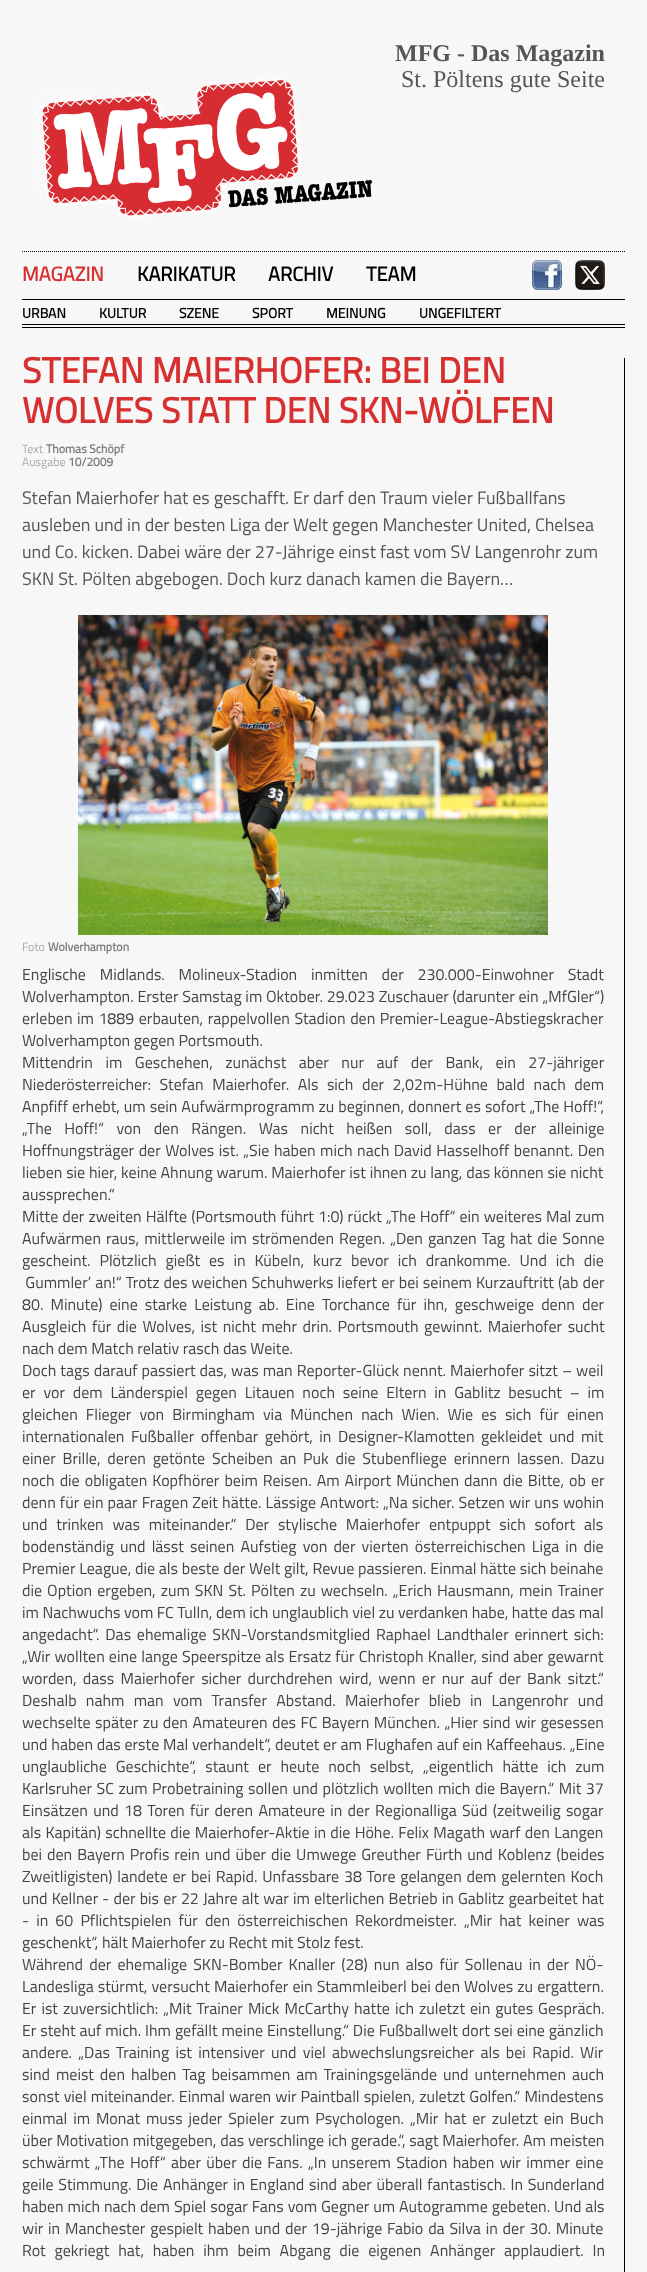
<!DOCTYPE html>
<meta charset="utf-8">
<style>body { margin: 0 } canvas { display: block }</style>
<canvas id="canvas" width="647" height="2272"></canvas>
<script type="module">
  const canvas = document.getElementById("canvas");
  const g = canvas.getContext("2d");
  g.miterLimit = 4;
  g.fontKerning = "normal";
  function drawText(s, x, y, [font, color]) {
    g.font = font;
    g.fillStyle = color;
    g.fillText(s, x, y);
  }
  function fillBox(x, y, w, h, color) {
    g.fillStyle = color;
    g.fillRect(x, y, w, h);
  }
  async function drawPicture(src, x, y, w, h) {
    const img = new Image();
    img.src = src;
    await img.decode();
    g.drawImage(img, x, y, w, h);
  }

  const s1 = ["bold 24px Liberation Serif", "#555555"];
  const s2 = ["24px Liberation Serif", "#555555"];
  const s3 = ["bold 20px Titillium Web", "#D63030"];
  const s4 = ["bold 20px Titillium Web", "#000000"];
  const s5 = ["bold 14px Titillium Web", "#000000"];
  const s6 = ["bold 36px Titillium Web", "#D63030"];
  const s7 = ["12px Titillium Web", "#AAAAAA"];
  const s8 = ["bold 12px Titillium Web", "#7C7C7C"];
  const s9 = ["18px Titillium Web", "#555555"];
  const s10 = ["16px Titillium Web", "#444444"];

  fillBox(0, 0, 647, 2272, "#F7F7F7");
  drawText("MFG - Das Magazin", 395, 61, s1);
  drawText("St. Pöltens gute Seite", 401, 87, s2);
  await drawPicture("pic1.png", 32, 76, 341, 143);
  g.beginPath();
  g.moveTo(22, 251.5);
  g.lineTo(625, 251.5);
  g.strokeStyle = "#000000";
  g.setLineDash([1, 1]);
  g.stroke();
  fillBox(22, 299, 603, 1, "#000000");
  drawText("MAGAZIN", 22, 281, s3);
  drawText("KARIKATUR", 137, 281, s4);
  drawText("ARCHIV", 268, 281, s4);
  drawText("TEAM", 366, 281, s4);
  await drawPicture("pic2.png", 532, 260, 30, 30);
  await drawPicture("pic3.png", 575, 260, 30, 30);
  fillBox(22, 324, 603, 1, "#000000");
  drawText("URBAN", 22, 318, s5);
  drawText("KULTUR", 99, 318, s5);
  drawText("SZENE", 179, 318, s5);
  drawText("SPORT", 252, 318, s5);
  drawText("MEINUNG", 326, 318, s5);
  drawText("UNGEFILTERT", 419, 318, s5);
  fillBox(22, 327, 603, 1, "#000000");
  fillBox(624, 358, 1, 1914, "#000000");
  drawText("STEFAN MAIERHOFER: BEI DEN", 22, 383, s6);
  drawText("WOLVES STATT DEN SKN-WÖLFEN", 22, 423, s6);
  drawText("Text", 22, 453, s7);
  drawText("Thomas Schöpf", 46, 453, s8);
  drawText("Ausgabe", 22, 466, s7);
  drawText("10/2009", 68, 466, s8);
  drawText("Stefan Maierhofer hat es geschafft. Er darf den Traum vieler Fußballfans", 22, 504, s9);
  drawText("ausleben und in der besten Liga der Welt gegen Manchester United, Chelsea", 22, 531, s9);
  drawText("und Co. kicken. Dabei wäre der 27-Jährige einst fast vom SV Langenrohr zum", 22, 558, s9);
  drawText("SKN St. Pölten abgebogen. Doch kurz danach kamen die Bayern…", 22, 585, s9);
  await drawPicture("pic4.png", 78, 615, 470, 320);
  drawText("Foto", 22, 951, s7);
  drawText("Wolverhampton", 48, 951, s8);
  g.wordSpacing = "10.25px";
  drawText("Englische Midlands. Molineux-Stadion inmitten der 230.000-Einwohner Stadt", 22, 980, s10);
  g.wordSpacing = "0.25px";
  drawText("Wolverhampton. Erster Samstag im Oktober. 29.023 Zuschauer (darunter ein „MfGler“)", 22, 1002, s10);
  g.wordSpacing = "1px";
  drawText("erleben im 1889 erbauten, rappelvollen Stadion den Premier-League-Abstiegskracher", 22, 1024, s10);
  g.wordSpacing = "0px";
  drawText("Wolverhampton gegen Portsmouth.", 22, 1046, s10);
  g.wordSpacing = "9px";
  drawText("Mittendrin im Geschehen, zunächst aber nur auf der Bank, ein 27-jähriger", 22, 1068, s10);
  g.wordSpacing = "5px";
  drawText("Niederösterreicher: Stefan Maierhofer. Als sich der 2,02m-Hühne bald nach dem", 22, 1090, s10);
  g.wordSpacing = "0.5px";
  drawText("Anpfiff erhebt, um sein Aufwärmprogramm zu beginnen, donnert es sofort „The Hoff!“,", 22, 1112, s10);
  g.wordSpacing = "9px";
  drawText("„The Hoff!“ von den Rängen. Was nicht heißen soll, dass er der alleinige", 22, 1134, s10);
  g.wordSpacing = "1px";
  drawText("Hoffnungsträger der Wolves ist. „Sie haben mich nach David Hasselhoff benannt. Den", 22, 1156, s10);
  g.wordSpacing = "0.25px";
  drawText("lieben sie hier, keine Ahnung warum. Maierhofer ist ihnen zu lang, das können sie nicht", 22, 1178, s10);
  g.wordSpacing = "0px";
  drawText("aussprechen.“", 22, 1200, s10);
  g.wordSpacing = "0.5px";
  drawText("Mitte der zweiten Hälfte (Portsmouth führt 1:0) rückt „The Hoff“ ein weiteres Mal zum", 22, 1222, s10);
  g.wordSpacing = "1.5px";
  drawText("Aufwärmen raus, mittlerweile im strömenden Regen. „Den ganzen Tag hat die Sonne", 22, 1244, s10);
  g.wordSpacing = "5.4px";
  drawText("gescheint. Plötzlich gießt es in Kübeln, kurz bevor ich drankomme. Und ich die", 22, 1266, s10);
  g.wordSpacing = "0.5px";
  drawText("‚Gummler’ an!“ Trotz des weichen Schuhwerks liefert er bei seinem Kurzauftritt (ab der", 22, 1288, s10);
  g.wordSpacing = "3.6px";
  drawText("80. Minute) eine starke Leistung ab. Eine Torchance für ihn, geschweige denn der", 22, 1310, s10);
  g.wordSpacing = "2px";
  drawText("Ausgleich für die Wolves, ist nicht mehr drin. Portsmouth gewinnt. Maierhofer sucht", 22, 1332, s10);
  g.wordSpacing = "0px";
  drawText("nach dem Match relativ rasch das Weite.", 22, 1354, s10);
  g.wordSpacing = "0.5px";
  drawText("Doch tags darauf passiert das, was man Reporter-Glück nennt. Maierhofer sitzt – weil", 22, 1376, s10);
  g.wordSpacing = "4.25px";
  drawText("er vor dem Länderspiel gegen Litauen noch seine Eltern in Gablitz besucht – im", 22, 1398, s10);
  g.wordSpacing = "4.6px";
  drawText("gleichen Flieger von Birmingham via München nach Wien. Wie es sich für einen", 22, 1420, s10);
  g.wordSpacing = "3px";
  drawText("internationalen Fußballer offenbar gehört, in Designer-Klamotten gekleidet und mit", 22, 1442, s10);
  g.wordSpacing = "3.25px";
  drawText("einer Brille, deren getönte Scheiben an Puk die Stubenfliege erinnern lassen. Dazu", 22, 1464, s10);
  g.wordSpacing = "1.5px";
  drawText("noch die obligaten Kopfhörer beim Reisen. Am Airport München dann die Bitte, ob er", 22, 1486, s10);
  g.wordSpacing = "0.6px";
  drawText("denn für ein paar Fragen Zeit hätte. Lässige Antwort: „Na sicher. Setzen wir uns wohin", 22, 1508, s10);
  g.wordSpacing = "5.25px";
  drawText("und trinken was miteinander.“ Der stylische Maierhofer entpuppt sich sofort als", 22, 1530, s10);
  g.wordSpacing = "2.6px";
  drawText("bodenständig und lässt seinen Aufstieg von der vierten österreichischen Liga in die", 22, 1552, s10);
  g.wordSpacing = "0.25px";
  drawText("Premier League, die als beste der Welt gilt, Revue passieren. Einmal hätte sich beinahe", 22, 1574, s10);
  g.wordSpacing = "1.5px";
  drawText("die Option ergeben, zum SKN St. Pölten zu wechseln. „Erich Hausmann, mein Trainer", 22, 1596, s10);
  g.wordSpacing = "0px";
  drawText("im Nachwuchs vom FC Tulln, dem ich unglaublich viel zu verdanken habe, hatte das mal", 22, 1618, s10);
  g.wordSpacing = "2.25px";
  drawText("angedacht“. Das ehemalige SKN-Vorstandsmitglied Raphael Landthaler erinnert sich:", 22, 1640, s10);
  g.wordSpacing = "0.6px";
  drawText("„Wir wollten eine lange Speerspitze als Ersatz für Christoph Knaller, sind aber gewarnt", 22, 1662, s10);
  g.wordSpacing = "2.75px";
  drawText("worden, dass Maierhofer sicher durchdrehen wird, wenn er nur auf der Bank sitzt.“", 22, 1684, s10);
  g.wordSpacing = "5.75px";
  drawText("Deshalb nahm man vom Transfer Abstand. Maierhofer blieb in Langenrohr und", 22, 1706, s10);
  g.wordSpacing = "0.9px";
  drawText("wechselte später zu den Amateuren des FC Bayern München. „Hier sind wir gesessen", 22, 1728, s10);
  g.wordSpacing = "0.25px";
  drawText("und haben das erste Mal verhandelt“, deutet er am Flughafen auf ein Kaffeehaus. „Eine", 22, 1750, s10);
  g.wordSpacing = "5.4px";
  drawText("unglaubliche Geschichte“, staunt er heute noch selbst, „eigentlich hätte ich zum", 22, 1772, s10);
  g.wordSpacing = "1px";
  drawText("Karlsruher SC zum Probetraining sollen und plötzlich wollten mich die Bayern.“ Mit 37", 22, 1794, s10);
  g.wordSpacing = "1.75px";
  drawText("Einsätzen und 18 Toren für deren Amateure in der Regionalliga Süd (zeitweilig sogar", 22, 1816, s10);
  g.wordSpacing = "0.8px";
  drawText("als Kapitän) schnellte die Maierhofer-Aktie in die Höhe. Felix Magath warf den Langen", 22, 1838, s10);
  g.wordSpacing = "1.5px";
  drawText("bei den Bayern Profis rein und über die Umwege Greuther Fürth und Koblenz (beides", 22, 1860, s10);
  g.wordSpacing = "1.25px";
  drawText("Zweitligisten) landete er bei Rapid. Unfassbare 38 Tore gelangen dem gelernten Koch", 22, 1882, s10);
  g.wordSpacing = "0.6px";
  drawText("und Kellner - der bis er 22 Jahre alt war im elterlichen Betrieb in Gablitz gearbeitet hat", 22, 1904, s10);
  g.wordSpacing = "3.6px";
  drawText("- in 60 Pflichtspielen für den österreichischen Rekordmeister. „Mir hat keiner was", 22, 1926, s10);
  g.wordSpacing = "0px";
  drawText("geschenkt“, hält Maierhofer zu Recht mit Stolz fest.", 22, 1948, s10);
  g.wordSpacing = "2.6px";
  drawText("Während der ehemalige SKN-Bomber Knaller (28) nun also für Sollenau in der NÖ-", 22, 1970, s10);
  g.wordSpacing = "0.6px";
  drawText("Landesliga stürmt, versucht Maierhofer ein Stammleiberl bei den Wolves zu ergattern.", 22, 1992, s10);
  g.wordSpacing = "1.5px";
  drawText("Er ist zuversichtlich: „Mit Trainer Mick McCarthy hatte ich zuletzt ein gutes Gespräch.", 22, 2014, s10);
  g.wordSpacing = "0.4px";
  drawText("Er steht auf mich. Ihm gefällt meine Einstellung.“ Die Fußballwelt dort sei eine gänzlich", 22, 2036, s10);
  g.wordSpacing = "2.75px";
  drawText("andere. „Das Training ist intensiver und viel abwechslungsreicher als bei Rapid. Wir", 22, 2058, s10);
  g.wordSpacing = "2.4px";
  drawText("sind meist den halben Tag beisammen am Trainingsgelände und unternehmen auch", 22, 2080, s10);
  g.wordSpacing = "0.6px";
  drawText("sonst viel miteinander. Einmal waren wir Paintball spielen, zuletzt Golfen.“ Mindestens", 22, 2102, s10);
  g.wordSpacing = "2.4px";
  drawText("einmal im Monat muss jeder Spieler zum Psychologen. „Mir hat er zuletzt ein Buch", 22, 2124, s10);
  g.wordSpacing = "0.25px";
  drawText("über Motivation mitgegeben, das verschlinge ich gerade.“, sagt Maierhofer. Am meisten", 22, 2146, s10);
  g.wordSpacing = "1.75px";
  drawText("schwärmt „The Hoff“ aber über die Fans. „In unserem Stadion haben wir immer eine", 22, 2168, s10);
  g.wordSpacing = "1.25px";
  drawText("geile Stimmung. Die Anhänger in England sind aber überall fantastisch. In Sunderland", 22, 2190, s10);
  g.wordSpacing = "0.4px";
  drawText("haben mich nach dem Spiel sogar Fans vom Gegner um Autogramme gebeten. Und als", 22, 2212, s10);
  g.wordSpacing = "1.3px";
  drawText("wir in Manchester gespielt haben und der 19-jährige Fabio da Silva in der 30. Minute", 22, 2234, s10);
  g.wordSpacing = "5.25px";
  drawText("Rot gekriegt hat, haben ihm beim Abgang die eigenen Anhänger applaudiert. In", 22, 2256, s10);
</script>
